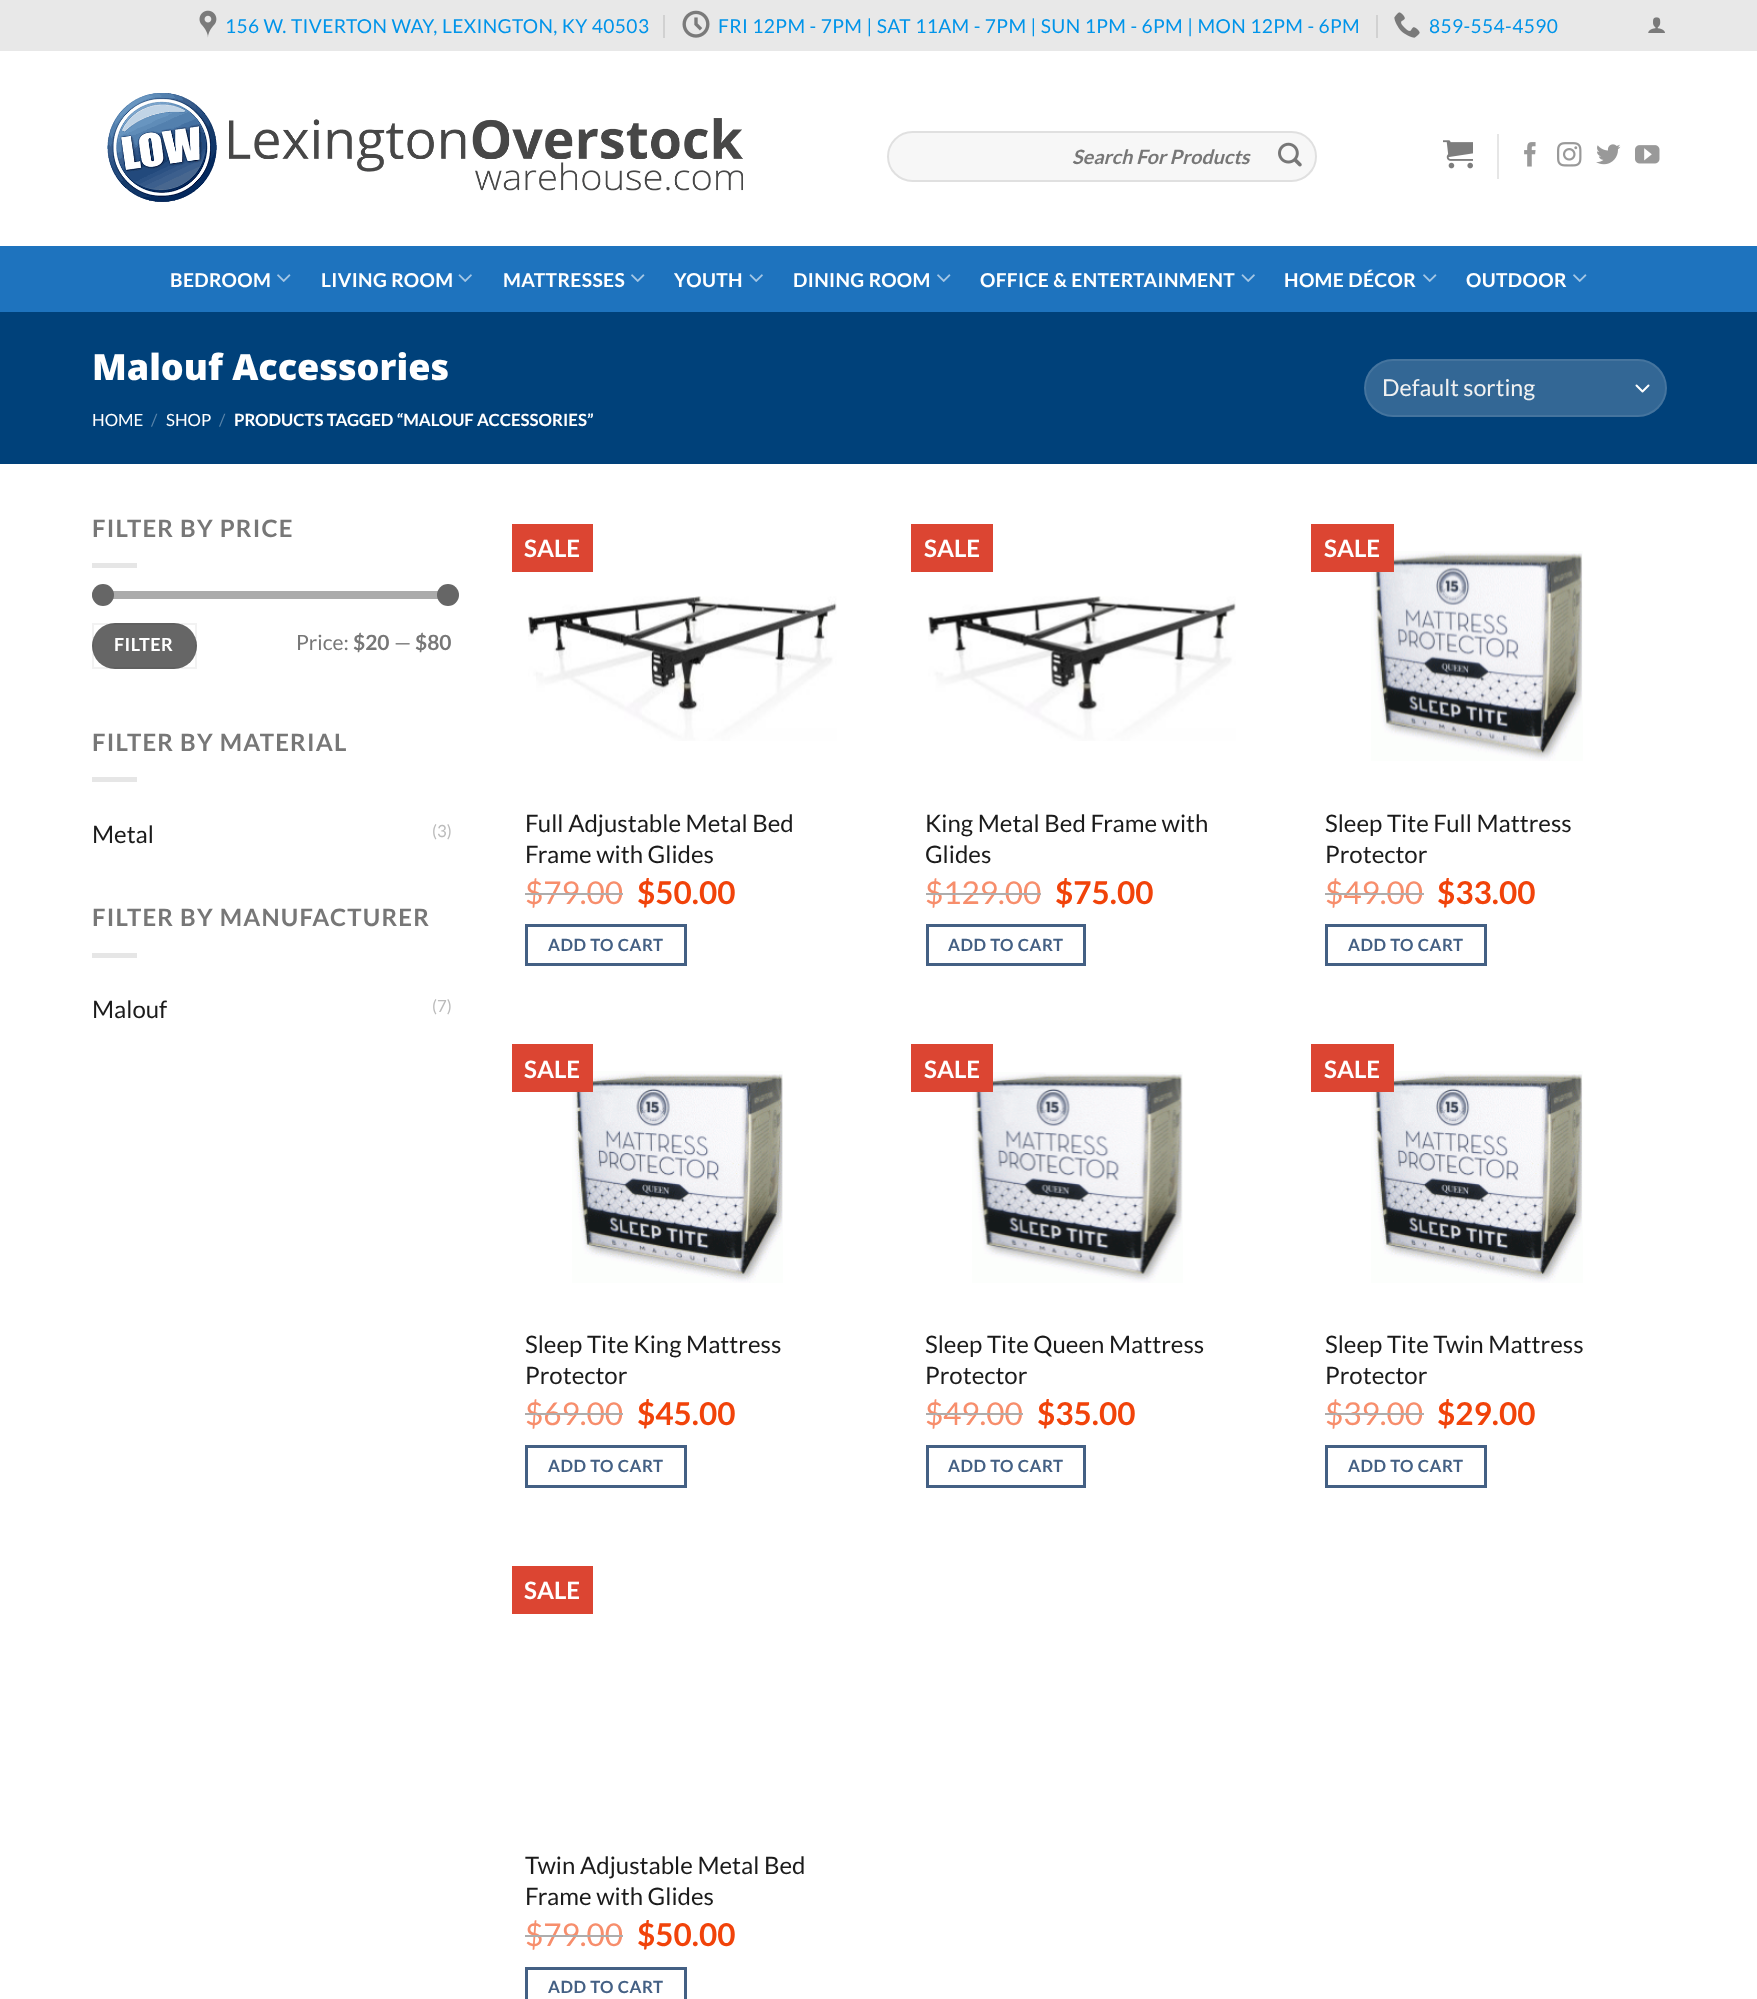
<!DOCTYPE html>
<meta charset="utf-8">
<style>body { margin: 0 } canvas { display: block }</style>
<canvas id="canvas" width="1757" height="1999"></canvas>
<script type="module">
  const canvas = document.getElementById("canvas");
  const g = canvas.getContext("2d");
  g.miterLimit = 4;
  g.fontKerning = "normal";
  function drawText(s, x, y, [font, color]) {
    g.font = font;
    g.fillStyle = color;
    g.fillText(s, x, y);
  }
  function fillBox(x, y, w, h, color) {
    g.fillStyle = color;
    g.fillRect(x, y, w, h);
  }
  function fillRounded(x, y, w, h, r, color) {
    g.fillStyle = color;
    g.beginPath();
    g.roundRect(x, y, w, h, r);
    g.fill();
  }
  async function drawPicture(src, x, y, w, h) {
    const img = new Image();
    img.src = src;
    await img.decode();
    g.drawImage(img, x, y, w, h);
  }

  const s1 = ["19.2px Lato", "#0094E9"];
  const s2 = ["italic bold 19.75px Lato", "#777777"];
  const s3 = ["bold 19.2px Lato", "#FFFFFF"];
  const s4 = ["800 36px Open Sans", "#FFFFFF"];
  const s5 = ["16.8px Lato", "#FFFFFF"];
  const s6 = ["16.8px Lato", "#5984A9"];
  const s7 = ["bold 16.8px Lato", "#FFFFFF"];
  const s8 = ["23.25px Lato", "#F1F1F1"];
  const s9 = ["bold 24px Lato", "#777777"];
  const s10 = ["bold 18px Lato", "#FFFFFF"];
  const s11 = ["21px Lato", "#777777"];
  const s12 = ["bold 21px Lato", "#777777"];
  const s13 = ["24px Lato", "#1B1B1B"];
  const s14 = ["16.8px Lato", "#BBBBBB"];
  const s15 = ["bold 24px Lato", "#FFFFFF"];
  const s16 = ["31.5px Lato", "#F78E6C"];
  const s17 = ["bold 31.5px Lato", "#F1430A"];
  const s18 = ["bold 16.8px Lato", "#446084"];

  fillBox(0, 0, 1757, 1999, "#FFFFFF");
  fillBox(0, 0, 1757, 51, "#E8E8E8");
  await drawPicture("pic1.png", 199, 10, 18, 28);
  g.letterSpacing = "0.38px";
  drawText("156 W. TIVERTON WAY, LEXINGTON, KY 40503", 225, 33, s1);
  fillBox(663, 15, 2, 23, "#D1D1D1");
  await drawPicture("pic2.png", 682, 10, 28, 28);
  drawText("FRI 12PM - 7PM | SAT 11AM - 7PM | SUN 1PM - 6PM | MON 12PM - 6PM", 718, 33, s1);
  fillBox(1376, 15, 2, 23, "#D1D1D1");
  await drawPicture("pic3.png", 1394, 12, 26, 26);
  drawText("859-554-4590", 1429, 33, s1);
  await drawPicture("pic4.png", 1648, 17, 17, 16);
  await drawPicture("pic5.png", 107, 93, 636, 109);
  fillRounded(887, 131, 430, 51, 25.5, "#F7F7F7");
  g.beginPath();
  g.roundRect(888, 132, 428, 49, 24.5);
  g.strokeStyle = "rgba(0, 0, 0, 0.09)";
  g.lineWidth = 2;
  g.stroke();
  g.letterSpacing = "0px";
  drawText("Search For Products", 1072, 164, s2);
  await drawPicture("pic6.png", 1278, 142, 24, 25);
  await drawPicture("pic7.png", 1443, 140, 30, 29);
  fillBox(1497, 134, 2, 45, "#E6E6E6");
  await drawPicture("pic8.png", 1524, 142, 12, 25);
  await drawPicture("pic9.png", 1557, 142, 25, 25);
  await drawPicture("pic10.png", 1596, 144, 25, 21);
  await drawPicture("pic11.png", 1635, 145, 25, 19);
  fillBox(0, 246, 1757, 66, "#1E73BE");
  g.letterSpacing = "0.38px";
  drawText("BEDROOM", 170, 287, s3);
  await drawPicture("pic12.png", 277, 274, 14, 8);
  drawText("LIVING ROOM", 321, 287, s3);
  await drawPicture("pic13.png", 458, 274, 14, 8);
  drawText("MATTRESSES", 503, 287, s3);
  await drawPicture("pic12.png", 631, 274, 14, 8);
  drawText("YOUTH", 674, 287, s3);
  await drawPicture("pic13.png", 749, 274, 14, 8);
  drawText("DINING ROOM", 793, 287, s3);
  await drawPicture("pic12.png", 937, 274, 14, 8);
  drawText("OFFICE & ENTERTAINMENT", 980, 287, s3);
  await drawPicture("pic13.png", 1241, 274, 14, 8);
  drawText("HOME DÉCOR", 1284, 287, s3);
  await drawPicture("pic12.png", 1423, 274, 14, 8);
  drawText("OUTDOOR", 1466, 287, s3);
  await drawPicture("pic12.png", 1573, 274, 14, 8);
  fillBox(0, 312, 1757, 152, "#00417A");
  g.letterSpacing = "0px";
  drawText("Malouf Accessories", 92, 380, s4);
  drawText("HOME", 92, 426, s5);
  drawText("/", 151, 426, s6);
  drawText("SHOP", 166, 426, s5);
  drawText("/", 219, 426, s6);
  drawText("PRODUCTS TAGGED “MALOUF ACCESSORIES”", 234, 426, s7);
  fillRounded(1364, 359, 303, 58, 29, "#336795");
  g.beginPath();
  g.moveTo(1636.5, 385.5);
  g.lineTo(1642.5, 391.5);
  g.lineTo(1648.5, 385.5);
  g.strokeStyle = "#FFFFFF";
  g.lineCap = "round";
  g.lineJoin = "round";
  g.stroke();
  g.beginPath();
  g.roundRect(1365, 360, 301, 56, 28);
  g.strokeStyle = "rgba(255, 255, 255, 0.09)";
  g.lineJoin = "miter";
  g.stroke();
  drawText("Default sorting", 1382, 396, s8);
  g.letterSpacing = "1.2px";
  drawText("FILTER BY PRICE", 92, 537, s9);
  fillBox(92, 563, 45, 5, "#E6E6E6");
  fillRounded(92, 591, 360, 8, 4, "#F1F1F1");
  fillRounded(92, 591, 360, 8, 4, "rgba(102, 102, 102, 0.5)");
  g.fillStyle = "#666666";
  g.beginPath();
  g.arc(103, 595, 11, 0, Math.PI * 2);
  g.fill();
  g.beginPath();
  g.arc(448, 595, 11, 0, Math.PI * 2);
  g.fill();
  fillRounded(92, 623, 105, 46, 23, "#666666");
  g.strokeStyle = "rgba(0, 0, 0, 0.05)";
  g.strokeRect(93, 624, 103, 44);
  g.letterSpacing = "0.5px";
  drawText("FILTER", 114, 651, s10);
  g.letterSpacing = "0px";
  drawText("Price:", 296, 650, s11);
  drawText("$20", 353, 650, s12);
  drawText("—", 394, 650, s11);
  drawText("$80", 415, 650, s12);
  g.letterSpacing = "1.2px";
  drawText("FILTER BY MATERIAL", 92, 751, s9);
  fillBox(92, 777, 45, 5, "#E6E6E6");
  g.letterSpacing = "0px";
  drawText("Metal", 92, 843, s13);
  drawText("(3)", 432, 837, s14);
  g.letterSpacing = "1.2px";
  drawText("FILTER BY MANUFACTURER", 92, 926, s9);
  fillBox(92, 953, 45, 5, "#E6E6E6");
  g.letterSpacing = "0px";
  drawText("Malouf", 92, 1018, s13);
  drawText("(7)", 432, 1012, s14);
  fillBox(512, 524, 81, 48, "#DC4532");
  drawText("SALE", 524, 557, s15);
  await drawPicture("pic14.png", 528, 596, 309, 145);
  drawText("Full Adjustable Metal Bed", 525, 832, s13);
  drawText("Frame with Glides", 525, 863, s13);
  drawText("$79.00", 525, 904, s16);
  fillBox(525, 893, 98, 2, "#ADADAD");
  drawText("$50.00", 637, 904, s17);
  g.strokeStyle = "#446084";
  g.lineWidth = 3;
  g.strokeRect(526.5, 925.5, 159, 39);
  g.letterSpacing = "0.5px";
  drawText("ADD TO CART", 548, 951, s18);
  fillBox(911, 524, 82, 48, "#DC4532");
  g.letterSpacing = "0px";
  drawText("SALE", 924, 557, s15);
  await drawPicture("pic15.png", 928, 596, 308, 145);
  drawText("King Metal Bed Frame with", 925, 832, s13);
  drawText("Glides", 925, 863, s13);
  drawText("$129.00", 925, 904, s16);
  fillBox(926, 893, 115, 2, "#ADADAD");
  drawText("$75.00", 1055, 904, s17);
  g.strokeRect(927.5, 925.5, 157, 39);
  g.letterSpacing = "0.5px";
  drawText("ADD TO CART", 948, 951, s18);
  await drawPicture("pic16.png", 1371, 551, 212, 210);
  fillBox(1311, 524, 83, 48, "#DC4532");
  g.letterSpacing = "0px";
  drawText("SALE", 1324, 557, s15);
  drawText("Sleep Tite Full Mattress", 1325, 832, s13);
  drawText("Protector", 1325, 863, s13);
  drawText("$49.00", 1325, 904, s16);
  fillBox(1325, 893, 99, 2, "#ADADAD");
  drawText("$33.00", 1437, 904, s17);
  g.strokeRect(1326.5, 925.5, 159, 39);
  g.letterSpacing = "0.5px";
  drawText("ADD TO CART", 1348, 951, s18);
  await drawPicture("pic17.png", 572, 1071, 211, 212);
  fillBox(512, 1044, 81, 48, "#DC4532");
  g.letterSpacing = "0px";
  drawText("SALE", 524, 1078, s15);
  drawText("Sleep Tite King Mattress", 525, 1353, s13);
  drawText("Protector", 525, 1384, s13);
  drawText("$69.00", 525, 1425, s16);
  fillBox(525, 1413, 98, 2, "#ADADAD");
  drawText("$45.00", 637, 1425, s17);
  g.strokeRect(526.5, 1446.5, 159, 40);
  g.letterSpacing = "0.5px";
  drawText("ADD TO CART", 548, 1472, s18);
  await drawPicture("pic18.png", 972, 1072, 211, 211);
  fillBox(911, 1044, 82, 48, "#DC4532");
  g.letterSpacing = "0px";
  drawText("SALE", 924, 1078, s15);
  drawText("Sleep Tite Queen Mattress", 925, 1353, s13);
  drawText("Protector", 925, 1384, s13);
  drawText("$", 925, 1425, s16);
  fillBox(926, 1413, 18, 2, "#ADADAD");
  drawText("49.00", 943, 1425, s16);
  fillBox(944, 1413, 79, 2, "#ADADAD");
  drawText("$35.00", 1037, 1425, s17);
  g.strokeRect(927.5, 1446.5, 157, 40);
  g.letterSpacing = "0.5px";
  drawText("ADD TO CART", 948, 1472, s18);
  await drawPicture("pic19.png", 1371, 1071, 212, 212);
  fillBox(1311, 1044, 83, 48, "#DC4532");
  g.letterSpacing = "0px";
  drawText("SALE", 1324, 1078, s15);
  drawText("Sleep Tite Twin Mattress", 1325, 1353, s13);
  drawText("Protector", 1325, 1384, s13);
  drawText("$39.00", 1325, 1425, s16);
  fillBox(1325, 1413, 99, 2, "#ADADAD");
  drawText("$29.00", 1437, 1425, s17);
  g.strokeRect(1326.5, 1446.5, 159, 40);
  g.letterSpacing = "0.5px";
  drawText("ADD TO CART", 1348, 1472, s18);
  fillBox(512, 1566, 81, 48, "#DC4532");
  g.letterSpacing = "0px";
  drawText("SALE", 524, 1599, s15);
  drawText("Twin Adjustable Metal Bed", 525, 1874, s13);
  drawText("Frame with Glides", 525, 1905, s13);
  drawText("$79.00", 525, 1946, s16);
  fillBox(525, 1935, 98, 2, "#ADADAD");
  drawText("$50.00", 637, 1946, s17);
  g.strokeRect(526.5, 1968.5, 159, 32);
  g.letterSpacing = "0.5px";
  drawText("ADD TO CART", 548, 1993, s18);
</script>
